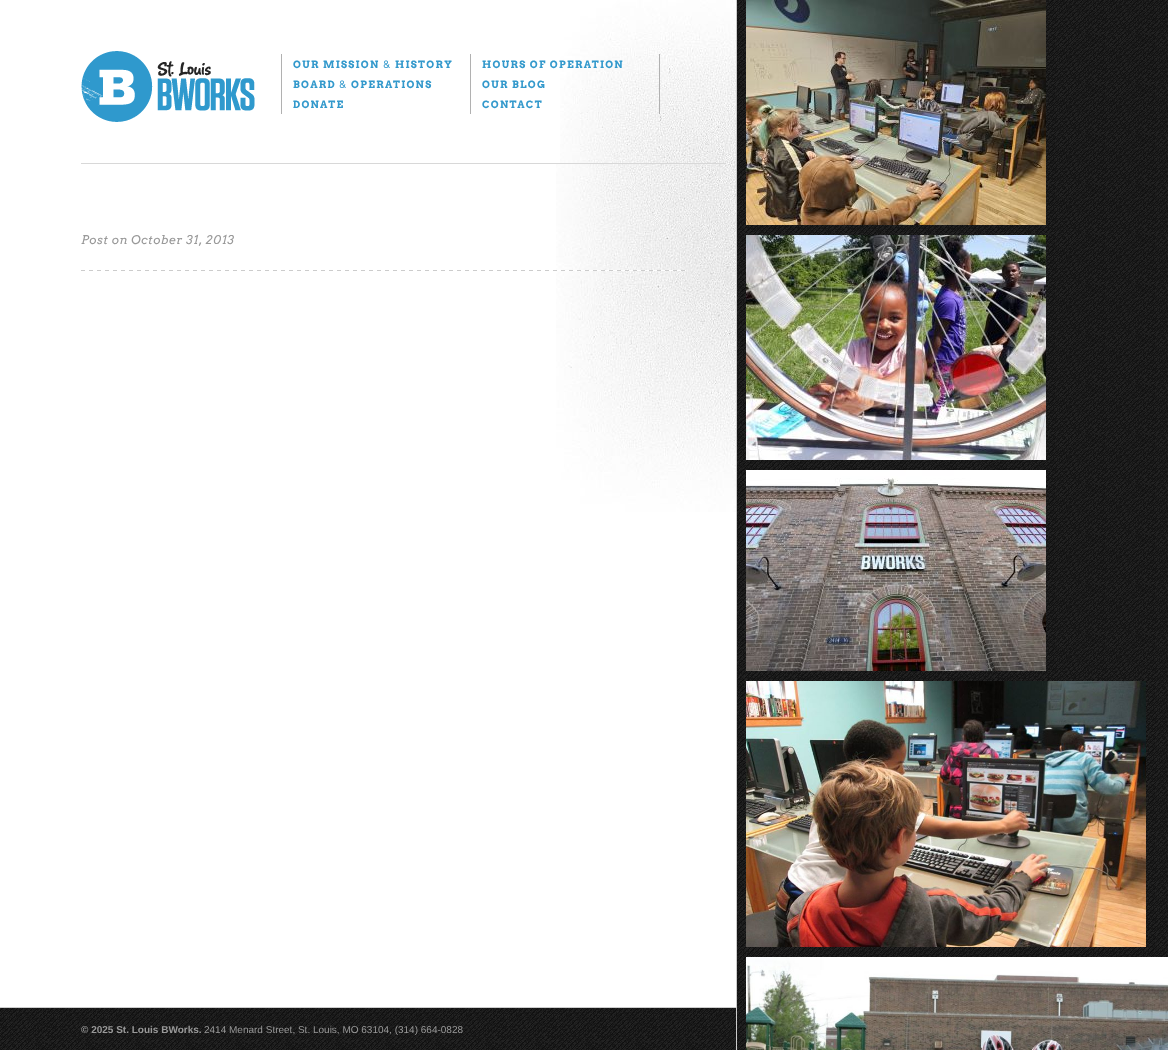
<!DOCTYPE html>
<meta charset="utf-8">
<style>body { margin: 0 } canvas { display: block }</style>
<canvas id="canvas" width="1168" height="1050"></canvas>
<script type="module">
  const canvas = document.getElementById("canvas");
  const g = canvas.getContext("2d");
  g.miterLimit = 4;
  g.fontKerning = "normal";
  function drawText(s, x, y, [font, color]) {
    g.font = font;
    g.fillStyle = color;
    g.fillText(s, x, y);
  }
  function fillBox(x, y, w, h, color) {
    g.fillStyle = color;
    g.fillRect(x, y, w, h);
  }
  async function drawPicture(src, x, y, w, h) {
    const img = new Image();
    img.src = src;
    await img.decode();
    g.drawImage(img, x, y, w, h);
  }

  const s1 = ["bold 10px Arvo", "#3399CC"];
  const s2 = ["10px Arvo", "#3399CC"];
  const s3 = ["italic 12px Arvo", "#999999"];
  const s4 = ["bold 10px Liberation Sans", "#999999"];
  const s5 = ["10px Liberation Sans", "#999999"];

  fillBox(0, 0, 1168, 1050, "#FFFFFF");
  await drawPicture("pic1.png", 737, 0, 431, 1050);
  await drawPicture("pic2.png", 556, 164, 180, 348);
  fillBox(736, 0, 1, 1050, "#CCCCCC");
  await drawPicture("pic3.png", 560, 0, 176, 164);
  fillBox(81, 163, 645, 1, "#D8D8D8");
  await drawPicture("pic4.png", 81, 51, 174, 71);
  fillBox(281, 54, 1, 60, "#B1B1B1");
  fillBox(470, 54, 1, 60, "#B1B1B1");
  g.letterSpacing = "1.25px";
  drawText("OUR MISSION", 293, 68, s1);
  drawText("&", 383, 68, s2);
  drawText("HISTORY", 395, 68, s1);
  fillBox(659, 54, 1, 60, "#B1B1B1");
  drawText("HOURS OF OPERATION", 482, 68, s1);
  drawText("BOARD", 293, 88, s1);
  drawText("&", 339, 88, s2);
  drawText("OPERATIONS", 351, 88, s1);
  drawText("OUR BLOG", 482, 88, s1);
  drawText("DONATE", 293, 108, s1);
  drawText("CONTACT", 482, 108, s1);
  g.letterSpacing = "0.5px";
  drawText("Post on October 31, 2013", 81, 244, s3);
  await drawPicture("pic5.png", 81, 270, 605, 1);
  await drawPicture("pic6.png", 746, 0, 300, 225);
  await drawPicture("pic7.png", 746, 235, 300, 225);
  await drawPicture("pic8.png", 746, 470, 300, 201);
  await drawPicture("pic9.png", 746, 681, 400, 266);
  await drawPicture("pic10.png", 746, 957, 422, 93);
  await drawPicture("pic11.png", 0, 1008, 736, 42);
  fillBox(0, 1007, 736, 1, "#CCCCCC");
  g.letterSpacing = "0px";
  drawText("© 2025 St. Louis BWorks.", 81, 1033, s4);
  drawText("2414 Menard Street, St. Louis, MO 63104, (314) 664-0828", 204, 1033, s5);
</script>
